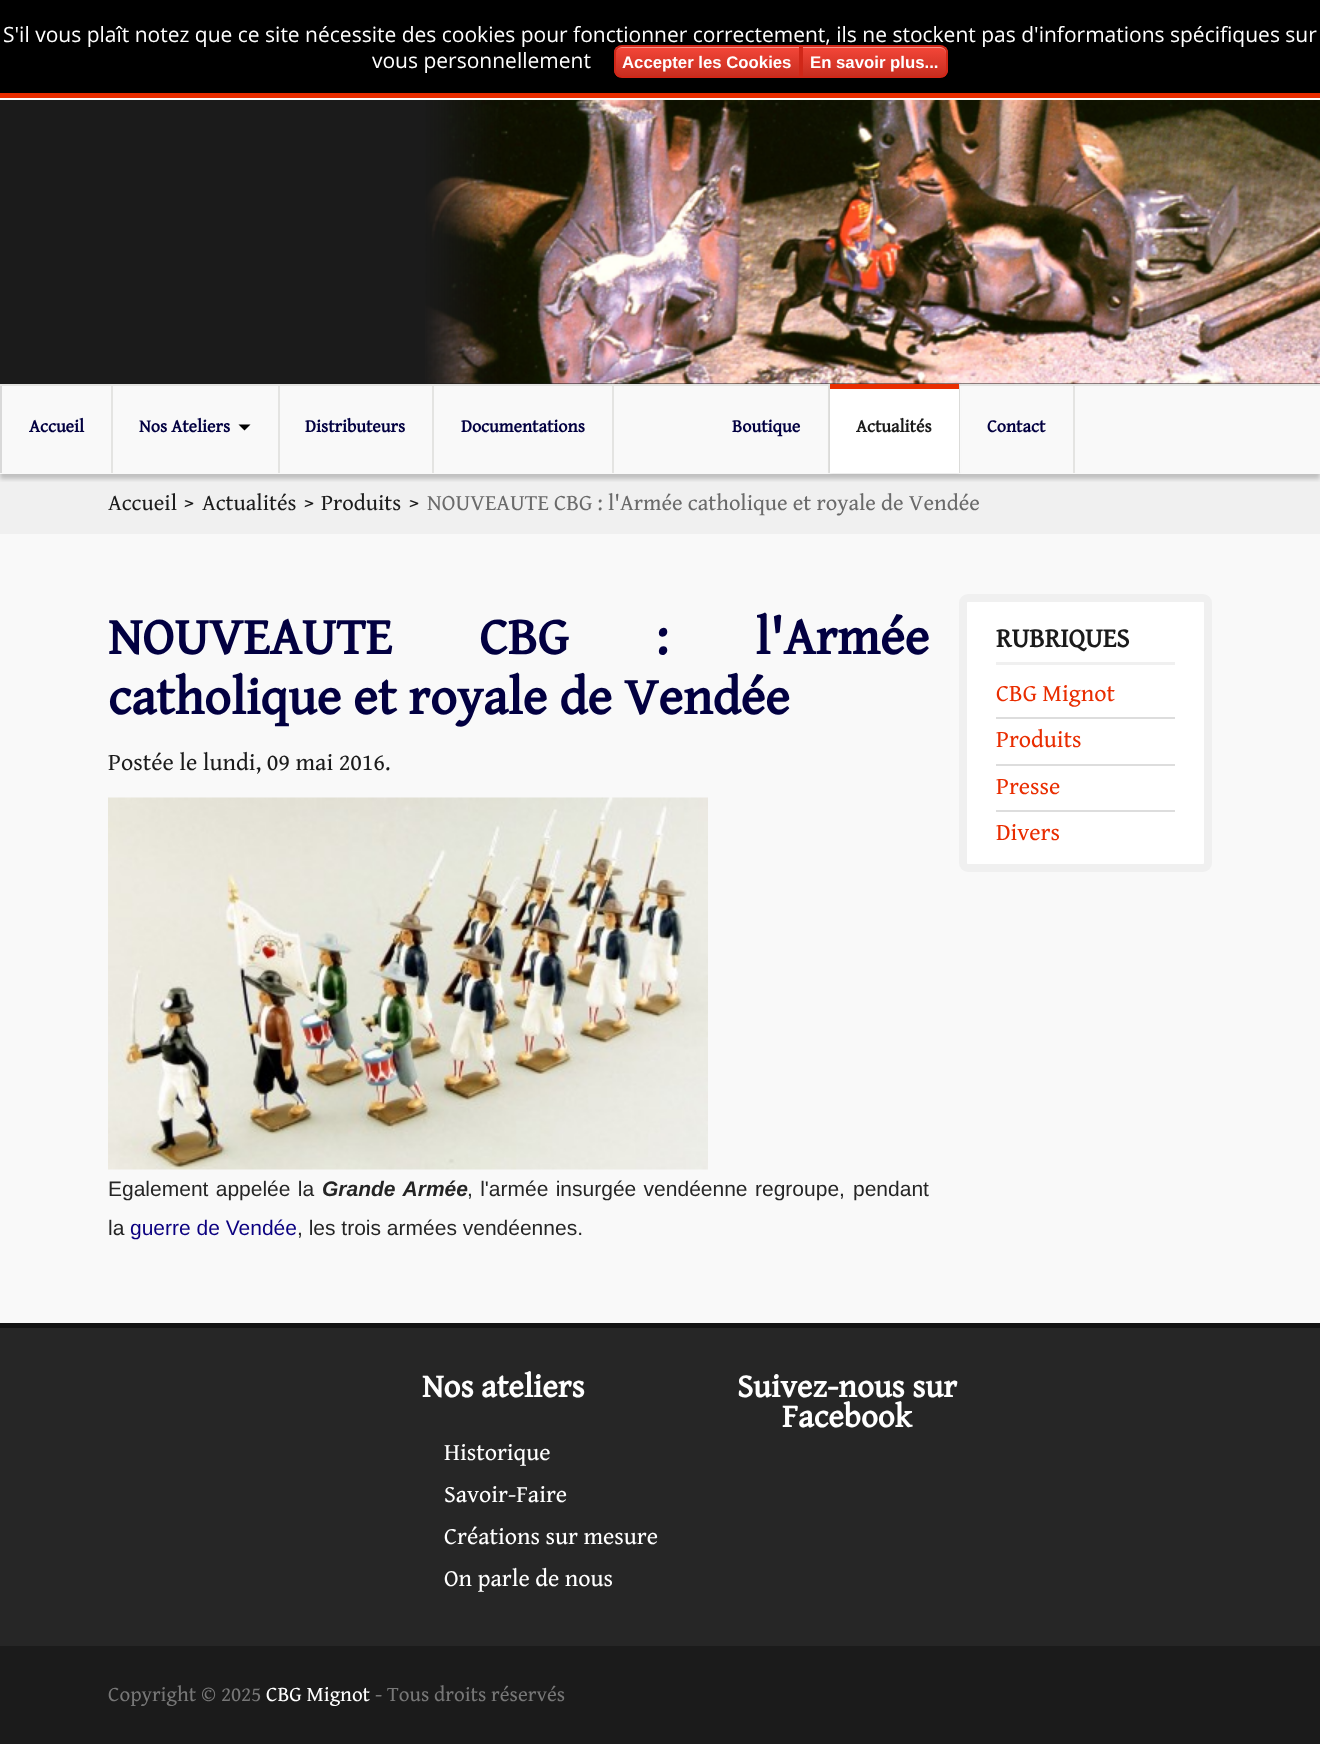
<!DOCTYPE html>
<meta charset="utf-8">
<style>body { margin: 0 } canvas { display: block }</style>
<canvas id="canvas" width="1320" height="1744"></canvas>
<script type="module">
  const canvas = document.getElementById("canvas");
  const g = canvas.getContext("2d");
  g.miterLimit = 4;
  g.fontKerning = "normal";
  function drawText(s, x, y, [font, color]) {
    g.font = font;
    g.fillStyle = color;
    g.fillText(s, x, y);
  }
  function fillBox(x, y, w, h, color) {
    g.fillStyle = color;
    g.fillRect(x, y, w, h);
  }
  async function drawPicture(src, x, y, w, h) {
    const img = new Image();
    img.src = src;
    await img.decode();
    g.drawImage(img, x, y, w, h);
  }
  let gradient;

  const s1 = ["21px Open Sans", "#FFFFFF"];
  const s2 = ["bold 16.75px Liberation Sans", "#FFFFFF"];
  const s3 = ["bold 18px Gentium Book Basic", "#020041"];
  const s4 = ["bold 18px Gentium Book Basic", "#1B1B1B"];
  const s5 = ["22.5px Gentium Book Basic", "#1B1B1B"];
  const s6 = ["22.5px Gentium Book Basic", "#6A6A6A"];
  const s7 = ["bold 52.5px Gentium Book Basic", "#020041"];
  const s8 = ["24px Gentium Book Basic", "#1B1B1B"];
  const s9 = ["21px Liberation Sans", "#252525"];
  const s10 = ["italic bold 21px Liberation Sans", "#252525"];
  const s11 = ["21px Liberation Sans", "#0B0080"];
  const s12 = ["bold 27px Gentium Book Basic", "#1B1B1B"];
  const s13 = ["24px Gentium Book Basic", "#E92D00"];
  const s14 = ["bold 33px Gentium Book Basic", "#FFFFFF"];
  const s15 = ["24px Gentium Book Basic", "#FFFFFF"];
  const s16 = ["21px Gentium Book Basic", "#777777"];
  const s17 = ["21px Gentium Book Basic", "#FFFFFF"];

  fillBox(0, 0, 1320, 1744, "#F0F0F0");
  fillBox(0, 0, 1320, 93, "#000000");
  drawText("S'il vous plaît notez que ce site nécessite des cookies pour fonctionner correctement, ils ne stockent pas d'informations spécifiques sur", 3, 42, s1);
  drawText("vous personnellement", 372, 68, s1);
  g.save();
  g.beginPath();
  g.roundRect(614, 45, 187, 33, [8, 0, 0, 8]);
  g.clip();
  gradient = g.createLinearGradient(615, 47, 615, 77);
  gradient.addColorStop(0.05, "#F24537");
  gradient.addColorStop(1, "#C62D1F");
  g.fillStyle = gradient;
  g.fillRect(614, 47, 185, 30);
  g.restore();
  g.fillStyle = "#F5978E";
  g.beginPath();
  g.moveTo(621, 48);
  g.lineTo(800, 48);
  g.lineTo(800, 47);
  g.lineTo(621, 47);
  g.bezierCurveTo(617, 47, 615, 50, 615, 54);
  g.bezierCurveTo(616, 51, 617, 48, 621, 48);
  g.closePath();
  g.fill();
  g.beginPath();
  g.roundRect(615, 46, 185, 31, [7, 0, 0, 7]);
  g.strokeStyle = "#D02718";
  g.lineWidth = 2;
  g.stroke();
  drawText("Accepter les Cookies", 622, 68, s2);
  g.save();
  g.beginPath();
  g.roundRect(801, 45, 147, 33, [0, 8, 8, 0]);
  g.clip();
  gradient = g.createLinearGradient(803, 47, 803, 77);
  gradient.addColorStop(0.05, "#F24537");
  gradient.addColorStop(1, "#C62D1F");
  g.fillStyle = gradient;
  g.fillRect(803, 47, 145, 30);
  g.restore();
  g.fillStyle = "#F5978E";
  g.beginPath();
  g.moveTo(803, 47);
  g.lineTo(803, 48);
  g.lineTo(940, 48);
  g.bezierCurveTo(944, 48, 946, 51, 946, 54);
  g.lineTo(946, 72);
  g.bezierCurveTo(946, 73, 946, 74, 945, 75);
  g.bezierCurveTo(949, 72, 947, 66, 947, 62);
  g.bezierCurveTo(947, 57, 949, 47, 941, 47);
  g.closePath();
  g.fill();
  g.beginPath();
  g.roundRect(802, 46, 145, 31, [0, 7, 7, 0]);
  g.stroke();
  drawText("En savoir plus...", 810, 68, s2);
  fillBox(0, 93, 1320, 5, "#E92D00");
  fillBox(0, 98, 1320, 2, "#FFFFFF");
  fillBox(0, 386, 1320, 88, "#F9F9F9");
  fillBox(0, 100, 1320, 284, "#1B1B1B");
  await drawPicture("pic1.png", 425, 100, 895, 284);
  g.save();
  g.beginPath();
  g.rect(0, 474, 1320, 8);
  g.clip();
  g.fillStyle = "rgba(0, 0, 0, 0.2)";
  g.filter = "blur(2px)";
  g.beginPath();
  g.rect(0, 389, 1320, 90);
  g.fill();
  g.filter = "none";
  g.restore();
  fillBox(0, 384, 1320, 2, "#E4E4E2");
  fillBox(0, 386, 2, 87, "#D9D9D9");
  fillBox(111, 386, 2, 87, "#E4E4E2");
  drawText("Accueil", 29, 432, s3);
  fillBox(278, 386, 2, 87, "#E4E4E2");
  drawText("Nos Ateliers", 139, 432, s3);
  g.fillStyle = "#000000";
  g.beginPath();
  g.moveTo(238.5, 424.5);
  g.lineTo(250.5, 424.5);
  g.lineTo(244.5, 430.5);
  g.closePath();
  g.fill();
  fillBox(432, 386, 2, 87, "#E4E4E2");
  drawText("Distributeurs", 305, 432, s3);
  fillBox(612, 386, 2, 87, "#E4E4E2");
  drawText("Documentations", 461, 432, s3);
  fillBox(828, 386, 2, 87, "#E4E4E2");
  drawText("Boutique", 732, 432, s3);
  fillBox(959, 386, 1, 87, "#E4E4E2");
  g.fillStyle = "rgba(0, 0, 0, 0.1)";
  g.filter = "blur(1.5px)";
  g.beginPath();
  g.rect(830, 384, 129, 89);
  g.fill();
  g.filter = "none";
  fillBox(830, 389, 129, 84, "#FFFFFF");
  fillBox(830, 384, 129, 5, "#E92D00");
  drawText("Actualités", 856, 432, s4);
  fillBox(1073, 386, 2, 87, "#E4E4E2");
  fillBox(960, 386, 1, 86, "#F9F9F9");
  drawText("Contact", 987, 432, s3);
  drawText("Accueil", 108, 510, s5);
  drawText(">", 184, 510, s5);
  drawText("Actualités", 202, 510, s5);
  drawText(">", 304, 510, s5);
  drawText("Produits", 321, 510, s5);
  drawText(">", 409, 510, s5);
  drawText("NOUVEAUTE CBG : l'Armée catholique et royale de Vendée", 427, 510, s6);
  fillBox(0, 534, 1320, 789, "#F9F9F9");
  g.wordSpacing = "75px";
  drawText("NOUVEAUTE CBG : l'Armée", 108, 654, s7);
  g.wordSpacing = "0px";
  drawText("catholique et royale de Vendée", 108, 714, s7);
  drawText("Postée le lundi, 09 mai 2016.", 108, 770, s8);
  await drawPicture("pic2.png", 108, 797, 600, 373);
  g.wordSpacing = "1.5px";
  drawText("Egalement appelée la", 108, 1196, s9);
  g.wordSpacing = "2px";
  drawText("Grande Armée", 322, 1196, s10);
  g.wordSpacing = "1.5px";
  drawText(", l'armée insurgée vendéenne", 467, 1196, s9);
  g.wordSpacing = "0px";
  drawText("regroupe,", 755, 1196, s9);
  drawText("pendant", 853, 1196, s9);
  drawText("la", 108, 1235, s9);
  drawText("guerre de Vendée", 130, 1235, s11);
  drawText(", les trois armées vendéennes.", 297, 1235, s9);
  g.fillStyle = "#FFFFFF";
  g.beginPath();
  g.roundRect(963, 598, 245, 270, 5);
  g.fill();
  g.strokeStyle = "#F0F0F0";
  g.lineWidth = 8;
  g.stroke();
  fillBox(996, 662, 179, 3, "#F0F0F0");
  drawText("RUBRIQUES", 996, 647, s12);
  drawText("CBG Mignot", 996, 701, s13);
  fillBox(996, 717, 179, 2, "#DDDDDD");
  drawText("Produits", 996, 747, s13);
  fillBox(996, 764, 179, 2, "#DDDDDD");
  drawText("Presse", 996, 794, s13);
  fillBox(996, 810, 179, 2, "#DDDDDD");
  drawText("Divers", 996, 840, s13);
  fillBox(0, 1328, 1320, 318, "#262626");
  fillBox(0, 1323, 1320, 5, "#131313");
  drawText("Nos ateliers", 422, 1397, s14);
  drawText("Historique", 444, 1460, s15);
  drawText("Savoir-Faire", 444, 1502, s15);
  drawText("Créations sur mesure", 444, 1544, s15);
  drawText("On parle de nous", 444, 1586, s15);
  drawText("Suivez-nous sur", 737, 1397, s14);
  drawText("Facebook", 782, 1427, s14);
  fillBox(0, 1646, 1320, 98, "#1B1B1B");
  drawText("Copyright © 2025", 108, 1701, s16);
  drawText("CBG Mignot", 266, 1701, s17);
  drawText("- Tous droits réservés", 375, 1701, s16);
</script>
